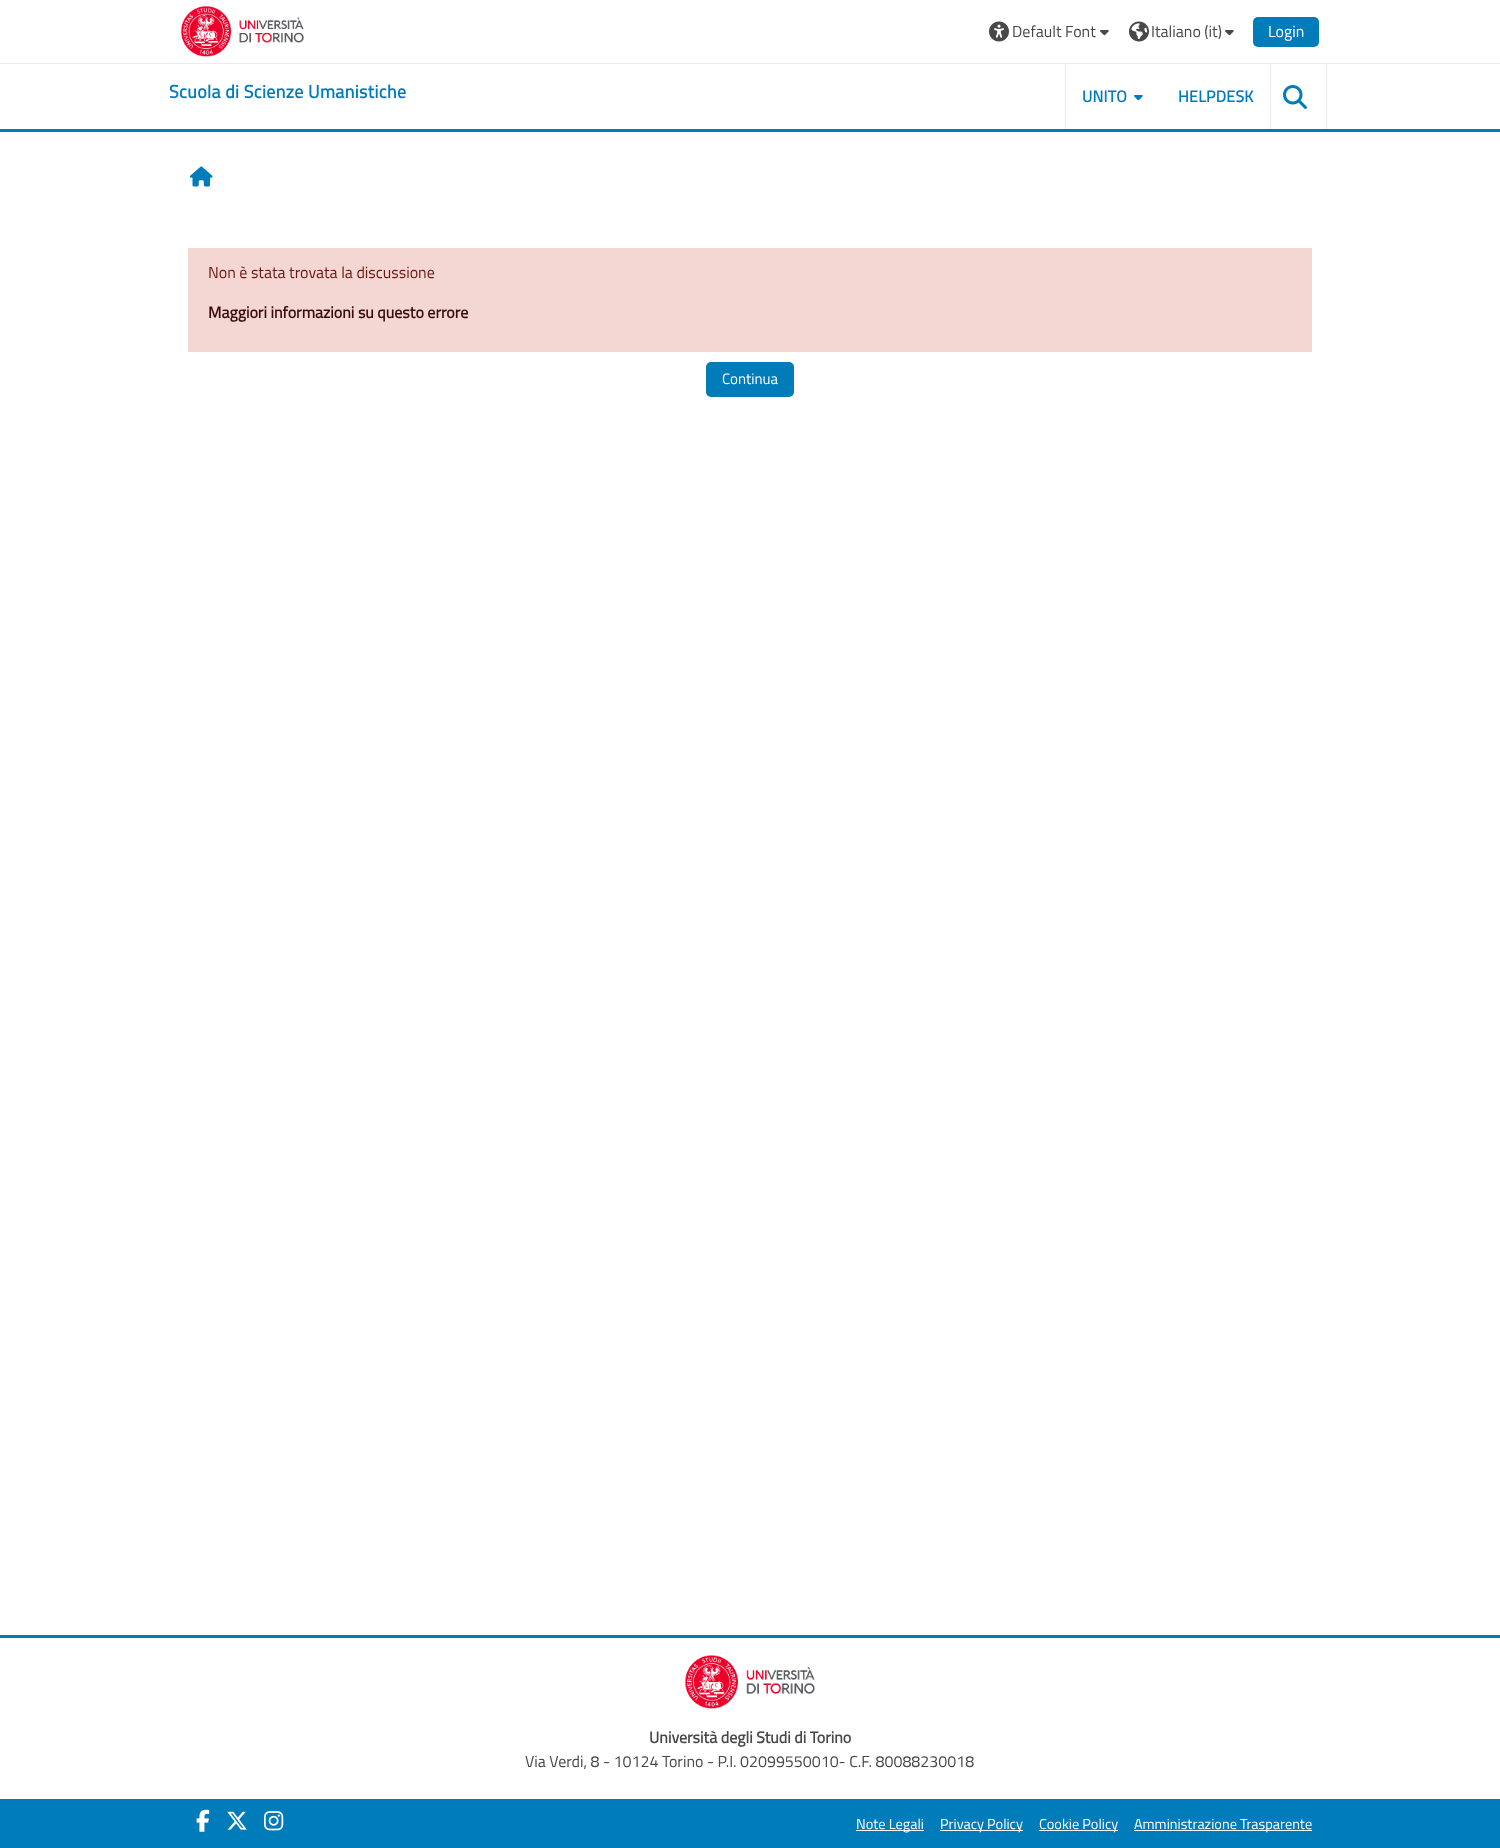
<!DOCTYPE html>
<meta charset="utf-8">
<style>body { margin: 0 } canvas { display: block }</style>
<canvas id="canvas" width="1500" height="1848"></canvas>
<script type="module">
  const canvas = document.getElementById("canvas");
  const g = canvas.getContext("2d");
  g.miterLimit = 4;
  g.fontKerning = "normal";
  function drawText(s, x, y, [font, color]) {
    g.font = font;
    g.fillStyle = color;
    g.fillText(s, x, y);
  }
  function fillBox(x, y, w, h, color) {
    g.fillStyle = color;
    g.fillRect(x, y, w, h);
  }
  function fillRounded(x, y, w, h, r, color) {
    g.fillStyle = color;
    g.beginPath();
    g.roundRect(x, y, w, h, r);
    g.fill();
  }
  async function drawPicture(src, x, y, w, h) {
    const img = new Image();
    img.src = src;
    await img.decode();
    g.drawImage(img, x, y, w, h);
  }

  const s1 = ["16px Titillium Web", "#484848"];
  const s2 = ["16px Titillium Web", "#FFFFFF"];
  const s3 = ["bold 18px Titillium Web", "#007CBA"];
  const s4 = ["bold 16px Titillium Web", "#007CBA"];
  const s5 = ["16px Titillium Web", "#691911"];
  const s6 = ["bold 16px Titillium Web", "#390E09"];
  const s7 = ["15px Titillium Web", "#FFFFFF"];
  const s8 = ["bold 16px Titillium Web", "#484848"];
  const s9 = ["14.4px Titillium Web", "#FFFFFF"];

  fillBox(0, 0, 1500, 1848, "#FFFFFF");
  fillBox(0, 129, 1500, 3, "#007CBA");
  fillBox(0, 63, 1500, 1, "#ECECEC");
  await drawPicture("pic1.png", 180, 6, 124, 51);
  await drawPicture("pic2.png", 989, 21, 20, 21);
  drawText("Default Font", 1012, 37, s1);
  await drawPicture("pic3.png", 1100, 30, 9, 6);
  await drawPicture("pic4.png", 1129, 21, 20, 21);
  drawText("Italiano (it)", 1151, 37, s1);
  await drawPicture("pic3.png", 1225, 30, 9, 6);
  fillRounded(1253, 17, 66, 30, 5, "#007CBA");
  drawText("Login", 1268, 37, s2);
  g.letterSpacing = "0.35px";
  drawText("Scuola di Scienze Umanistiche", 169, 98, s3);
  fillBox(1270, 64, 1, 65, "#ECECEC");
  fillBox(1065, 64, 1, 65, "#ECECEC");
  g.letterSpacing = "0.25px";
  drawText("UNITO", 1082, 102, s4);
  await drawPicture("pic5.png", 1134, 95, 9, 6);
  drawText("HELPDESK", 1178, 102, s4);
  fillBox(1326, 64, 1, 65, "#ECECEC");
  await drawPicture("pic6.png", 1283, 85, 24, 24);
  await drawPicture("pic7.png", 190, 166, 23, 21);
  fillBox(188, 248, 1124, 104, "#F4D6D2");
  g.letterSpacing = "0px";
  drawText("Non è stata trovata la discussione", 208, 278, s5);
  drawText("Maggiori informazioni su questo errore", 208, 318, s6);
  fillRounded(706, 362, 88, 35, 5, "#007CBA");
  drawText("Continua", 722, 384, s7);
  fillBox(0, 1635, 1500, 3, "#007CBA");
  await drawPicture("pic8.png", 684, 1655, 131, 54);
  drawText("Università degli Studi di Torino", 649, 1743, s8);
  drawText("Via Verdi, 8 - 10124 Torino - P.I. 02099550010- C.F. 80088230018", 525, 1767, s1);
  fillBox(0, 1799, 1500, 49, "#007CBA");
  await drawPicture("pic9.png", 196, 1809, 14, 23);
  await drawPicture("pic10.png", 227, 1811, 20, 19);
  await drawPicture("pic11.png", 264, 1811, 20, 20);
  fillBox(856, 1830, 68, 1, "#FFFFFF");
  drawText("Note Legali", 856, 1829, s9);
  fillBox(940, 1830, 83, 1, "#FFFFFF");
  drawText("Privacy Policy", 940, 1829, s9);
  fillBox(1039, 1830, 79, 1, "#FFFFFF");
  drawText("Cookie Policy", 1039, 1829, s9);
  fillBox(1134, 1830, 178, 1, "#FFFFFF");
  drawText("Amministrazione Trasparente", 1134, 1829, s9);
</script>
